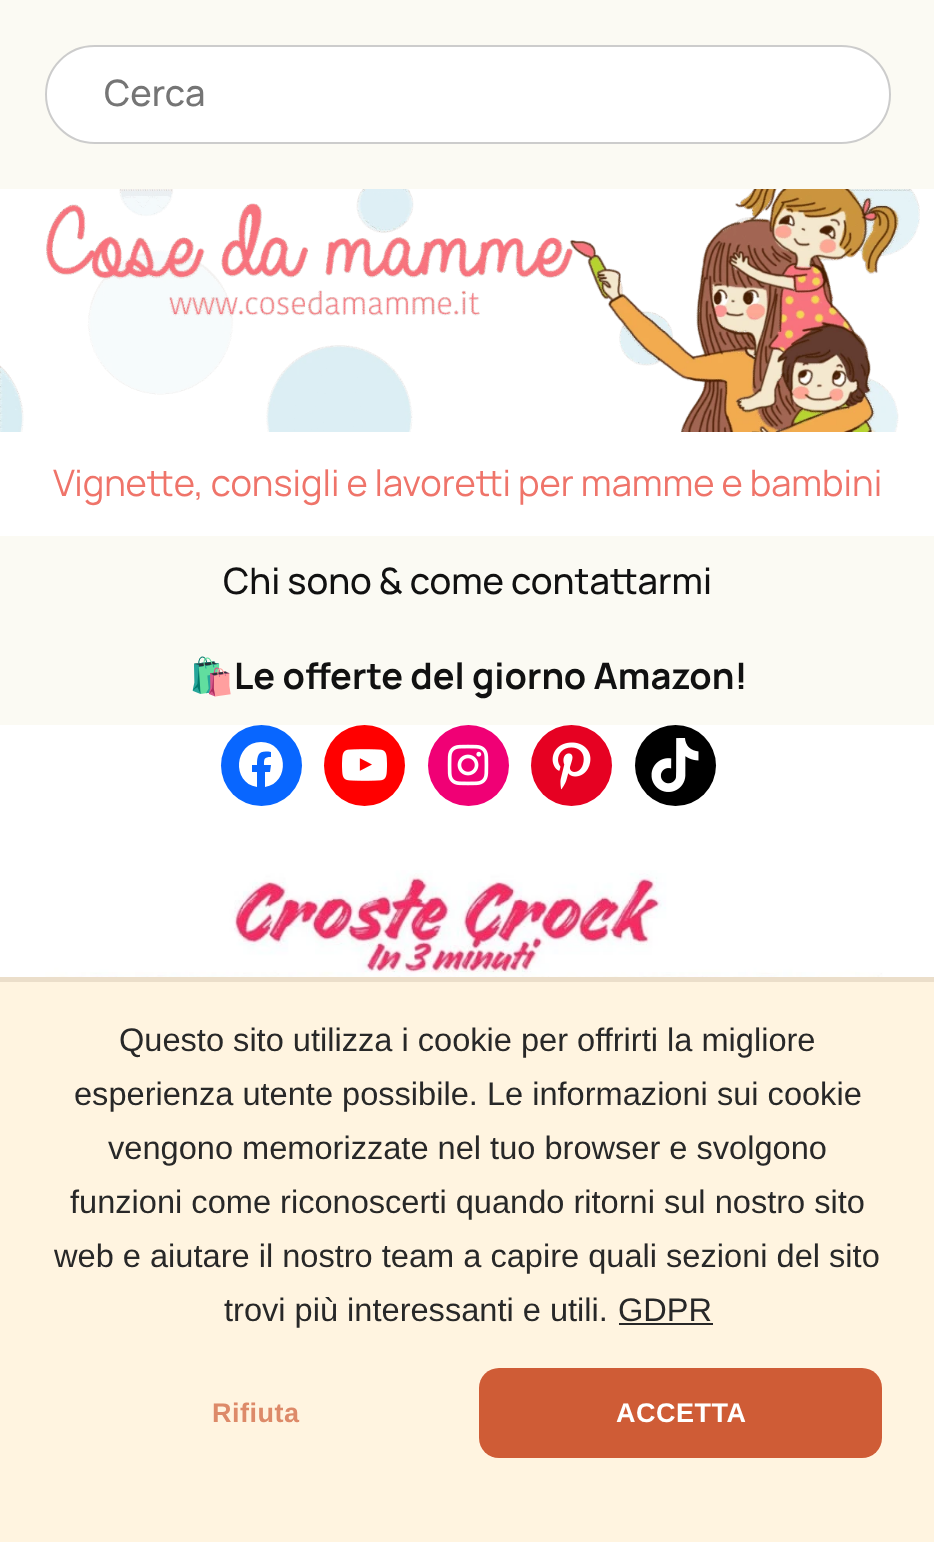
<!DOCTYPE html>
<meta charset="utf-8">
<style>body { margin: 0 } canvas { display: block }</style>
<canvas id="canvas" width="934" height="1542"></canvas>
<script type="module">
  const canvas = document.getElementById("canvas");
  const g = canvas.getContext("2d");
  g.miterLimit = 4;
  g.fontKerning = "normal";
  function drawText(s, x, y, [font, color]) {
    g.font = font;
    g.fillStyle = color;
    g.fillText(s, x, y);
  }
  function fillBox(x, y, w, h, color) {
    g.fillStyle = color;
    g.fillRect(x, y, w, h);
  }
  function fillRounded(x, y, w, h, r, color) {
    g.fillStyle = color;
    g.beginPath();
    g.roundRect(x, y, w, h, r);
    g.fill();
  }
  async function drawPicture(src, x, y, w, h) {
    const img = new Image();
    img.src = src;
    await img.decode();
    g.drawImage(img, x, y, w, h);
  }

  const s1 = ["500 36.3px Manrope", "#757575"];
  const s2 = ["36.3px Manrope", "#EF746A"];
  const s3 = ["500 36.3px Manrope", "#111111"];
  const s4 = ["36.3px Noto Color Emoji", "#111111"];
  const s5 = ["bold 36.3px Manrope", "#111111"];
  const s6 = ["32.6px Liberation Sans", "#282828"];
  const s7 = ["bold 27px Liberation Sans", "#DD8A69"];
  const s8 = ["bold 27px Liberation Sans", "#FFFFFF"];

  fillBox(0, 0, 934, 1542, "#FFFFFF");
  fillBox(0, 0, 934, 189, "#FBFAF3");
  fillRounded(45, 45, 846, 99, 49.5, "#FFFFFF");
  g.beginPath();
  g.roundRect(46, 46, 844, 97, 48.5);
  g.strokeStyle = "rgba(0, 0, 0, 0.2)";
  g.lineWidth = 2;
  g.stroke();
  drawText("Cerca", 104, 106, s1);
  await drawPicture("pic1.png", 0, 189, 920, 243);
  g.wordSpacing = "-0.25px";
  drawText("Vignette, consigli e lavoretti per mamme e bambini", 53, 496, s2);
  fillBox(0, 536, 934, 189, "#FBFAF3");
  drawText("Chi sono & come contattarmi", 223, 594, s3);
  g.wordSpacing = "0px";
  drawText("🛍️", 189, 689, s4);
  drawText("Le offerte del giorno Amazon!", 234, 689, s5);
  g.fillStyle = "#0866FF";
  g.beginPath();
  g.arc(261.5, 765.5, 40.5, 0, Math.PI * 2);
  g.fill();
  g.fillStyle = "#FFFFFF";
  g.beginPath();
  g.moveTo(261, 742);
  g.bezierCurveTo(234, 742, 231, 783, 257, 787);
  g.lineTo(257, 772);
  g.lineTo(252, 772);
  g.lineTo(252, 765);
  g.lineTo(257, 765);
  g.bezierCurveTo(257, 754, 259, 750, 271, 752);
  g.lineTo(271, 757);
  g.bezierCurveTo(264, 757, 264, 759, 264, 765);
  g.lineTo(271, 765);
  g.lineTo(270, 772);
  g.lineTo(265, 772);
  g.lineTo(265, 787);
  g.bezierCurveTo(291, 783, 288, 742, 261, 742);
  g.closePath();
  g.fill();
  g.fillStyle = "#FF0000";
  g.beginPath();
  g.arc(364.5, 765.5, 40.5, 0, Math.PI * 2);
  g.fill();
  await drawPicture("pic2.png", 342, 749, 45, 32);
  g.fillStyle = "#F00075";
  g.beginPath();
  g.arc(468.5, 765.5, 40.5, 0, Math.PI * 2);
  g.fill();
  await drawPicture("pic3.png", 447, 744, 42, 42);
  g.fillStyle = "#E60122";
  g.beginPath();
  g.arc(571.5, 765.5, 40.5, 0, Math.PI * 2);
  g.fill();
  await drawPicture("pic4.png", 552, 742, 39, 48);
  g.fillStyle = "#000000";
  g.beginPath();
  g.arc(675.5, 765.5, 40.5, 0, Math.PI * 2);
  g.fill();
  await drawPicture("pic5.png", 651, 738, 48, 54);
  await drawPicture("pic6.png", 36, 870, 847, 107);
  fillBox(0, 982, 934, 560, "#FFF4E0");
  fillBox(0, 977, 934, 5, "#EBDECA");
  drawText("Questo sito utilizza i cookie per offrirti la migliore", 119, 1051, s6);
  drawText("esperienza utente possibile. Le informazioni sui cookie", 74, 1105, s6);
  drawText("vengono memorizzate nel tuo browser e svolgono", 108, 1159, s6);
  drawText("funzioni come riconoscerti quando ritorni sul nostro sito", 70, 1213, s6);
  drawText("web e aiutare il nostro team a capire quali sezioni del sito", 54, 1267, s6);
  drawText("trovi più interessanti e utili.", 224, 1321, s6);
  drawText("GDPR", 618, 1321, s6);
  fillBox(619, 1323, 94, 2, "#282828");
  g.letterSpacing = "0.5px";
  drawText("Rifiuta", 212, 1422, s7);
  fillRounded(479, 1368, 403, 90, 20, "#CF5C36");
  drawText("ACCETTA", 616, 1422, s8);
</script>
